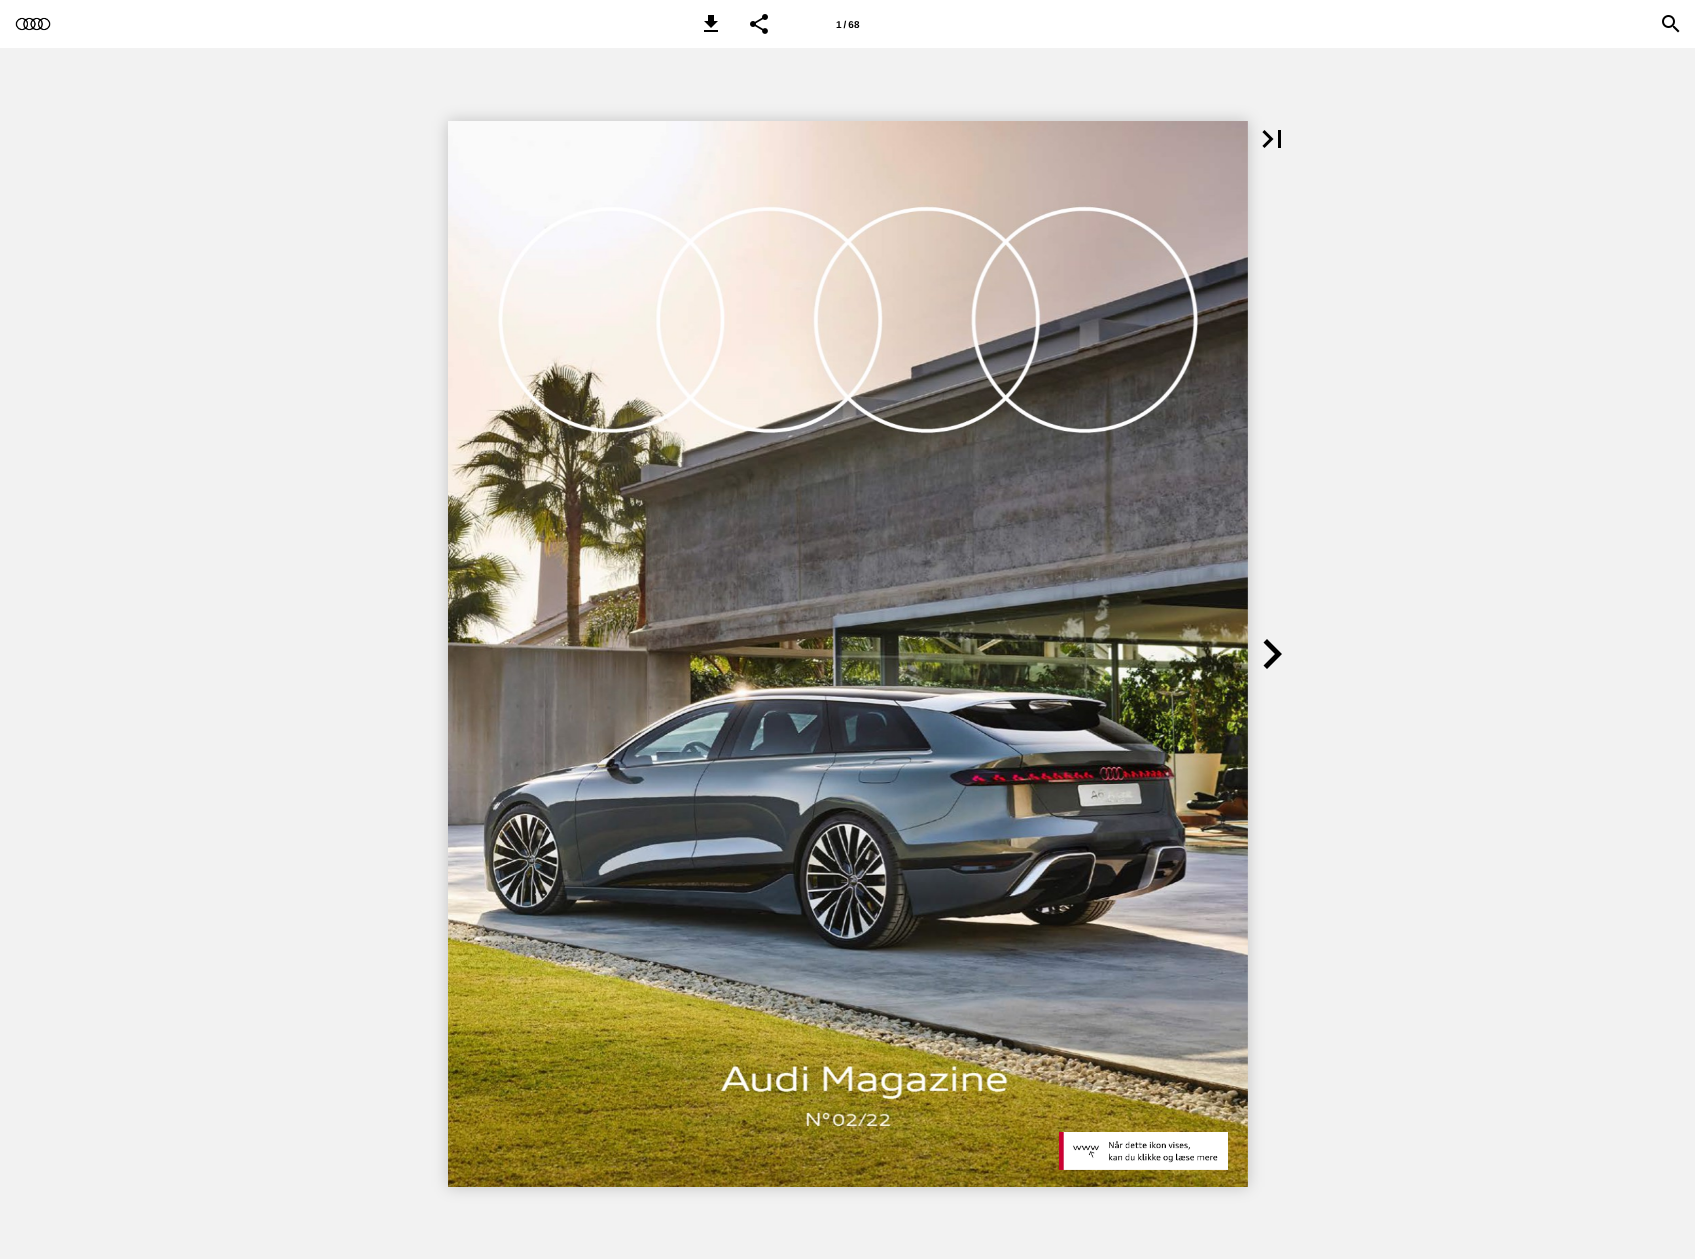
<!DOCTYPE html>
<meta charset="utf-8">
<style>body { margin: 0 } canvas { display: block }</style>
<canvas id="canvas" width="1695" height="1259"></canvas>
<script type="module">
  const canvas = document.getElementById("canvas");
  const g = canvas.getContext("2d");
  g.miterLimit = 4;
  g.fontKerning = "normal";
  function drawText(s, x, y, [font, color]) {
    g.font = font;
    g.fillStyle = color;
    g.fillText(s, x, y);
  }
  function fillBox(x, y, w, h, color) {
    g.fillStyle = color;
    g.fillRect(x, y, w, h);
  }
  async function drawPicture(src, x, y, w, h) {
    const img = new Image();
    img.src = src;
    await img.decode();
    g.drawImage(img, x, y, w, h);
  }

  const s1 = ["bold 10px Liberation Sans", "#000000"];

  fillBox(0, 0, 1695, 1259, "#F2F2F2");
  fillBox(0, 0, 1695, 48, "#FFFFFF");
  await drawPicture("pic1.png", 15, 17, 36, 14);
  await drawPicture("pic2.png", 704, 15, 14, 17);
  await drawPicture("pic3.png", 750, 14, 18, 20);
  drawText("1 / 68", 836, 28, s1);
  await drawPicture("pic4.png", 1662, 15, 18, 18);
  g.fillStyle = "rgba(0, 0, 0, 0.2)";
  g.filter = "blur(8px)";
  g.beginPath();
  g.rect(448, 121, 800, 1066);
  g.fill();
  g.filter = "none";
  await drawPicture("pic5.png", 448, 121, 800, 1066);
  await drawPicture("pic6.png", 1059, 1132, 169, 38);
  await drawPicture("pic7.png", 1262, 130, 19, 18);
  g.fillStyle = "#000000";
  g.beginPath();
  g.moveTo(1267, 639);
  g.lineTo(1263.5, 642.5);
  g.lineTo(1275, 654);
  g.lineTo(1263.5, 665.5);
  g.lineTo(1267, 669);
  g.lineTo(1282, 654);
  g.closePath();
  g.fill();
</script>
